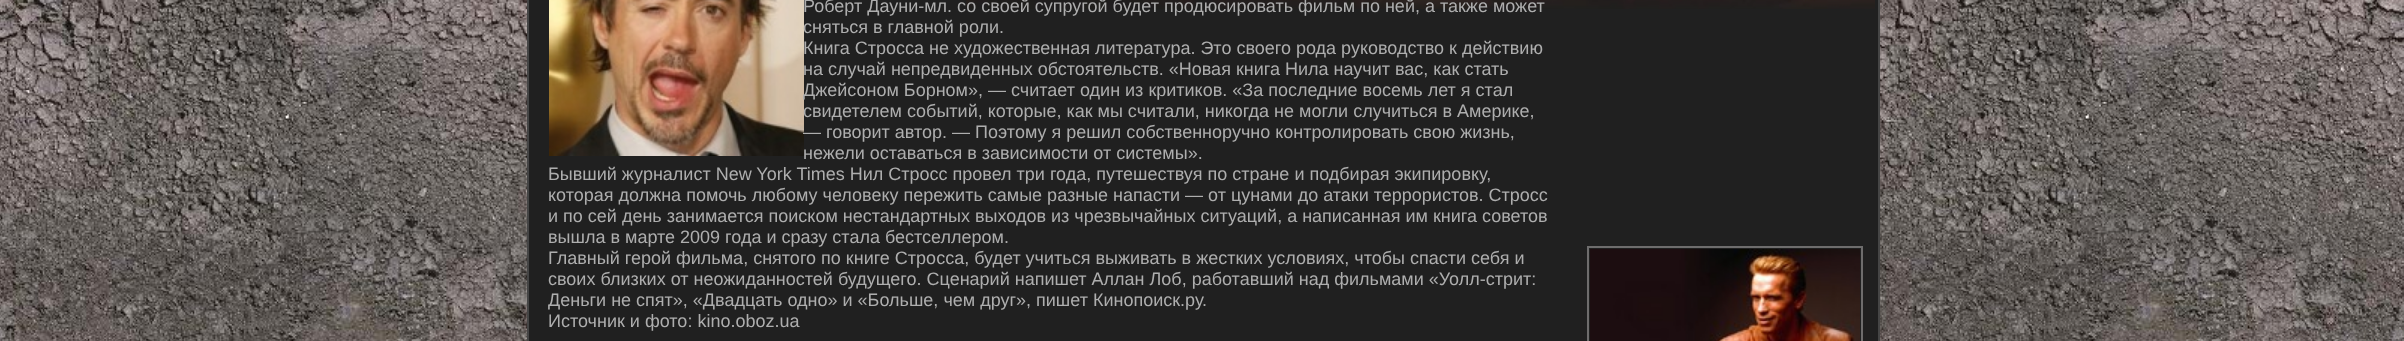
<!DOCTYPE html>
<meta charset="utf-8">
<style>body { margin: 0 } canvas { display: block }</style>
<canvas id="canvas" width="2404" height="341"></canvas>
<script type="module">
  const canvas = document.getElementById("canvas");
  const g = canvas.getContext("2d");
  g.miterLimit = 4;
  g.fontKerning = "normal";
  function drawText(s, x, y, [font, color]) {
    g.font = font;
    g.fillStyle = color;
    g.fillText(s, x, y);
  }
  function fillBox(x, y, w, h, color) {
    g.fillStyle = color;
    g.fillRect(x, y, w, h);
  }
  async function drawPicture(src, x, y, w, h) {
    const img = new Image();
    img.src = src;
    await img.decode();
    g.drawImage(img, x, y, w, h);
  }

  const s1 = ["18px Liberation Sans", "#AEAEAE"];

  fillBox(0, 0, 2404, 341, "#FFFFFF");
  await drawPicture("pic1.png", 0, 0, 2404, 341);
  fillBox(529, 0, 1349, 341, "#202020");
  await drawPicture("pic2.png", 966, 0, 909, 9);
  fillBox(1878, 0, 2, 341, "#454545");
  fillBox(527, 0, 2, 341, "#454545");
  await drawPicture("pic3.png", 549, 0, 255, 156);
  drawText("Роберт Дауни-мл. со своей супругой будет продюсировать фильм по ней, а также может", 803, 12, s1);
  drawText("сняться в главной роли.", 803, 33, s1);
  drawText("Книга Стросса не художественная литература. Это своего рода руководство к действию", 803, 54, s1);
  drawText("на случай непредвиденных обстоятельств. «Новая книга Нила научит вас, как стать", 803, 75, s1);
  drawText("Джейсоном Борном», — считает один из критиков. «За последние восемь лет я стал", 803, 96, s1);
  drawText("свидетелем событий, которые, как мы считали, никогда не могли случиться в Америке,", 803, 117, s1);
  drawText("— говорит автор. — Поэтому я решил собственноручно контролировать свою жизнь,", 803, 138, s1);
  drawText("нежели оставаться в зависимости от системы».", 803, 159, s1);
  drawText("Бывший журналист New York Times Нил Стросс провел три года, путешествуя по стране и подбирая экипировку,", 548, 180, s1);
  drawText("которая должна помочь любому человеку пережить самые разные напасти — от цунами до атаки террористов. Стросс", 548, 201, s1);
  drawText("и по сей день занимается поиском нестандартных выходов из чрезвычайных ситуаций, а написанная им книга советов", 548, 222, s1);
  drawText("вышла в марте 2009 года и сразу стала бестселлером.", 548, 243, s1);
  drawText("Главный герой фильма, снятого по книге Стросса, будет учиться выживать в жестких условиях, чтобы спасти себя и", 548, 264, s1);
  drawText("своих близких от неожиданностей будущего. Сценарий напишет Аллан Лоб, работавший над фильмами «Уолл-стрит:", 548, 285, s1);
  drawText("Деньги не спят», «Двадцать одно» и «Больше, чем друг», пишет Кинопоиск.ру.", 548, 306, s1);
  drawText("Источник и фото: kino.oboz.ua", 548, 327, s1);
  g.strokeStyle = "#6E6D6D";
  g.lineWidth = 2;
  g.strokeRect(1588, 247, 274, 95);
  await drawPicture("pic4.png", 1590, 249, 270, 92);
</script>
